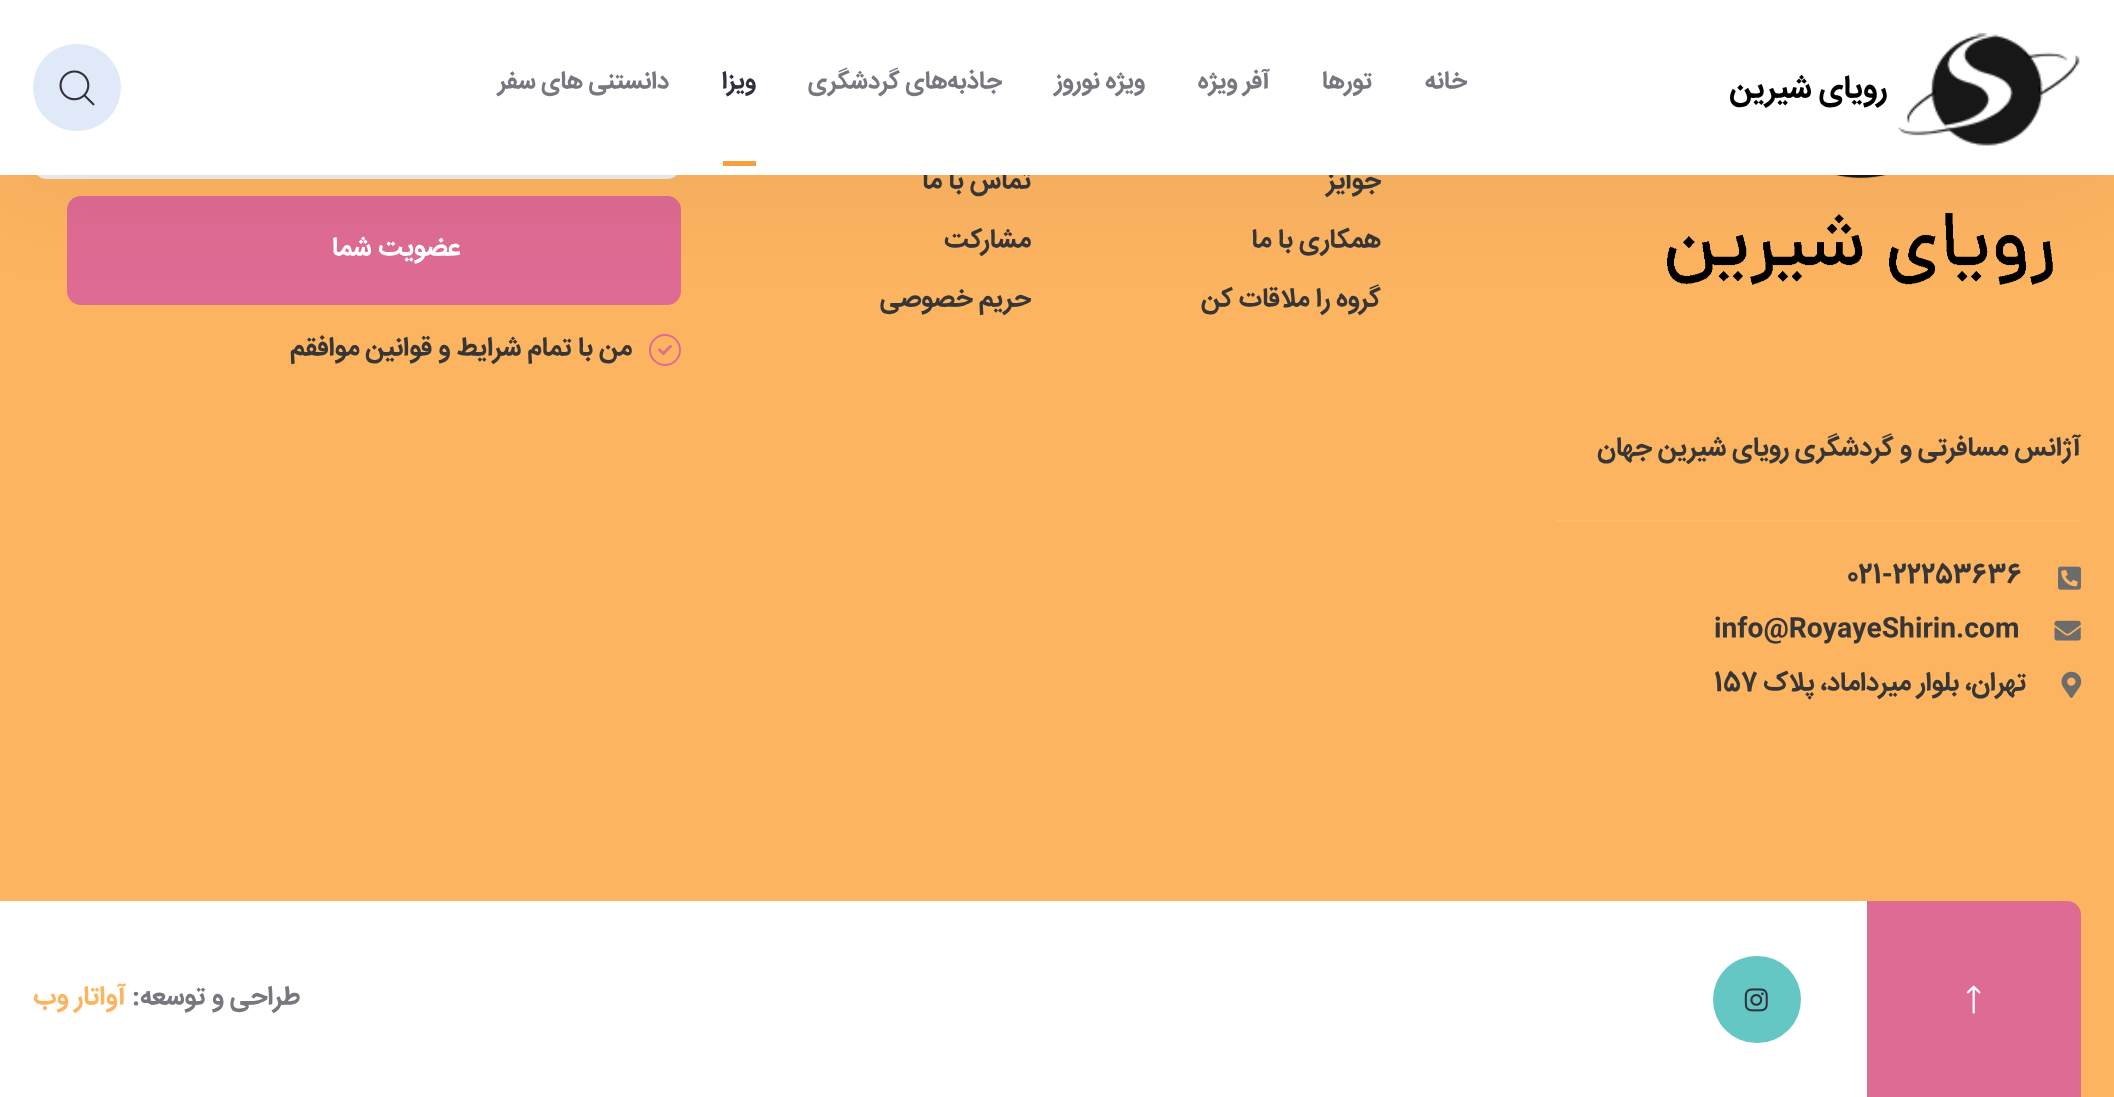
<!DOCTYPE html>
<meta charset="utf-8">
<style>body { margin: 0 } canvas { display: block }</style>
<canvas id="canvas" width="2114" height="1097"></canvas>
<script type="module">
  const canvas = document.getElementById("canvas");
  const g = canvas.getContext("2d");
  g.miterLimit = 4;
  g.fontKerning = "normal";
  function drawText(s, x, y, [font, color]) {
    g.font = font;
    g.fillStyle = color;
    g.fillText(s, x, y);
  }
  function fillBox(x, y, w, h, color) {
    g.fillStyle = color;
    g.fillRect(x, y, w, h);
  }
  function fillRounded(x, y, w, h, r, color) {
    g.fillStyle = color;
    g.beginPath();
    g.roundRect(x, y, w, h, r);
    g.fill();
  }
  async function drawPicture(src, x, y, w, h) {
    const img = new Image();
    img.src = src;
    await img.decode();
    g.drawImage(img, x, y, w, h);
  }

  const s1 = ["bold 26.25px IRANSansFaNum", "#363636"];
  const s2 = ["bold 31.5px IRANSansFaNum", "#000000"];
  const s3 = ["bold 24.5px IRANSansFaNum", "#787780"];
  const s4 = ["bold 24.5px IRANSansFaNum", "#313041"];
  const s5 = ["bold 26.25px IRANSansFaNum", "#FFFFFF"];
  const s6 = ["bold 26.25px IRANSansFaNum", "#787780"];
  const s7 = ["bold 26.25px IRANSansFaNum", "#FCB461"];

  fillBox(0, 0, 2114, 1097, "#FCB461");
  fillRounded(33, 61, 648, 118, 14, "#EDEDED");
  fillRounded(67, 196, 614, 109, 14, "#DE6B93");
  g.beginPath();
  g.arc(665, 350, 15, 0, Math.PI * 2);
  g.strokeStyle = "#DE6B93";
  g.lineWidth = 2;
  g.stroke();
  await drawPicture("pic3.png", 658, 344, 14, 12);
  await drawPicture("pic4.png", 1667, 175, 386, 110);
  g.fillStyle = "rgba(0, 0, 0, 0.05)";
  g.filter = "blur(52.5px)";
  g.beginPath();
  g.rect(0, 18, 2114, 175);
  g.fill();
  g.filter = "none";
  g.direction = "rtl";
  drawText("جوایز", 1381, 188, s1);
  drawText("تماس با ما", 1031, 188, s1);
  fillBox(0, 0, 2114, 175, "#FFFFFF");
  await drawPicture("pic1.png", 1898, 32, 182, 114);
  drawText("رویای شیرین", 1887, 97, s2);
  drawText("خانه", 1467, 88, s3);
  drawText("تورها", 1372, 88, s3);
  drawText("آفر ویژه", 1270, 88, s3);
  drawText("ویژه نوروز", 1145, 88, s3);
  drawText("جاذبه‌های گردشگری", 1002, 88, s3);
  drawText("ویزا", 756, 88, s4);
  fillBox(723, 161, 33, 5, "#F4A03E");
  drawText("دانستنی های سفر", 669, 88, s3);
  fillRounded(33, 44, 88, 87, 43.5, "#E0E9F7");
  await drawPicture("pic2.png", 59, 70, 36, 36);
  drawText("همکاری با ما", 1381, 247, s1);
  drawText("گروه را ملاقات کن", 1381, 306, s1);
  drawText("مشارکت", 1031, 247, s1);
  drawText("حریم خصوصی", 1031, 306, s1);
  g.letterSpacing = "2.6px";
  g.wordSpacing = "-2px";
  drawText("عضویت شما", 460, 255, s5);
  g.letterSpacing = "0px";
  g.wordSpacing = "0px";
  drawText("من با تمام شرایط و قوانین موافقم", 632, 355, s1);
  fillBox(1556, 520, 525, 2, "#FCBC71");
  drawText("آژانس مسافرتی و گردشگری رویای شیرین جهان", 2081, 455, s1);
  await drawPicture("pic5.png", 2058, 566, 23, 24);
  g.direction = "ltr";
  drawText("021-22253636", 1847, 582, s1);
  await drawPicture("pic6.png", 2054, 620, 27, 21);
  drawText("info@RoyayeShirin.com", 1714, 636, s1);
  await drawPicture("pic7.png", 2061, 671, 21, 27);
  g.direction = "rtl";
  drawText("تهران، بلوار میرداماد، پلاک", 2026, 690, s1);
  g.direction = "ltr";
  drawText("157", 1714, 690, s1);
  g.fillStyle = "#FFFFFF";
  g.beginPath();
  g.roundRect(0, 901, 2077, 196, [0, 14, 0, 0]);
  g.fill();
  g.fillStyle = "#DE6B93";
  g.beginPath();
  g.roundRect(1867, 901, 214, 196, [0, 14, 0, 0]);
  g.fill();
  await drawPicture("pic8.png", 1966, 985, 15, 29);
  fillRounded(1713, 956, 88, 87, 43.5, "#65C7C3");
  await drawPicture("pic9.png", 1744, 988, 24, 24);
  g.direction = "rtl";
  drawText("طراحی و توسعه:", 300, 1004, s6);
  drawText("آواتار وب", 126, 1004, s7);
</script>
